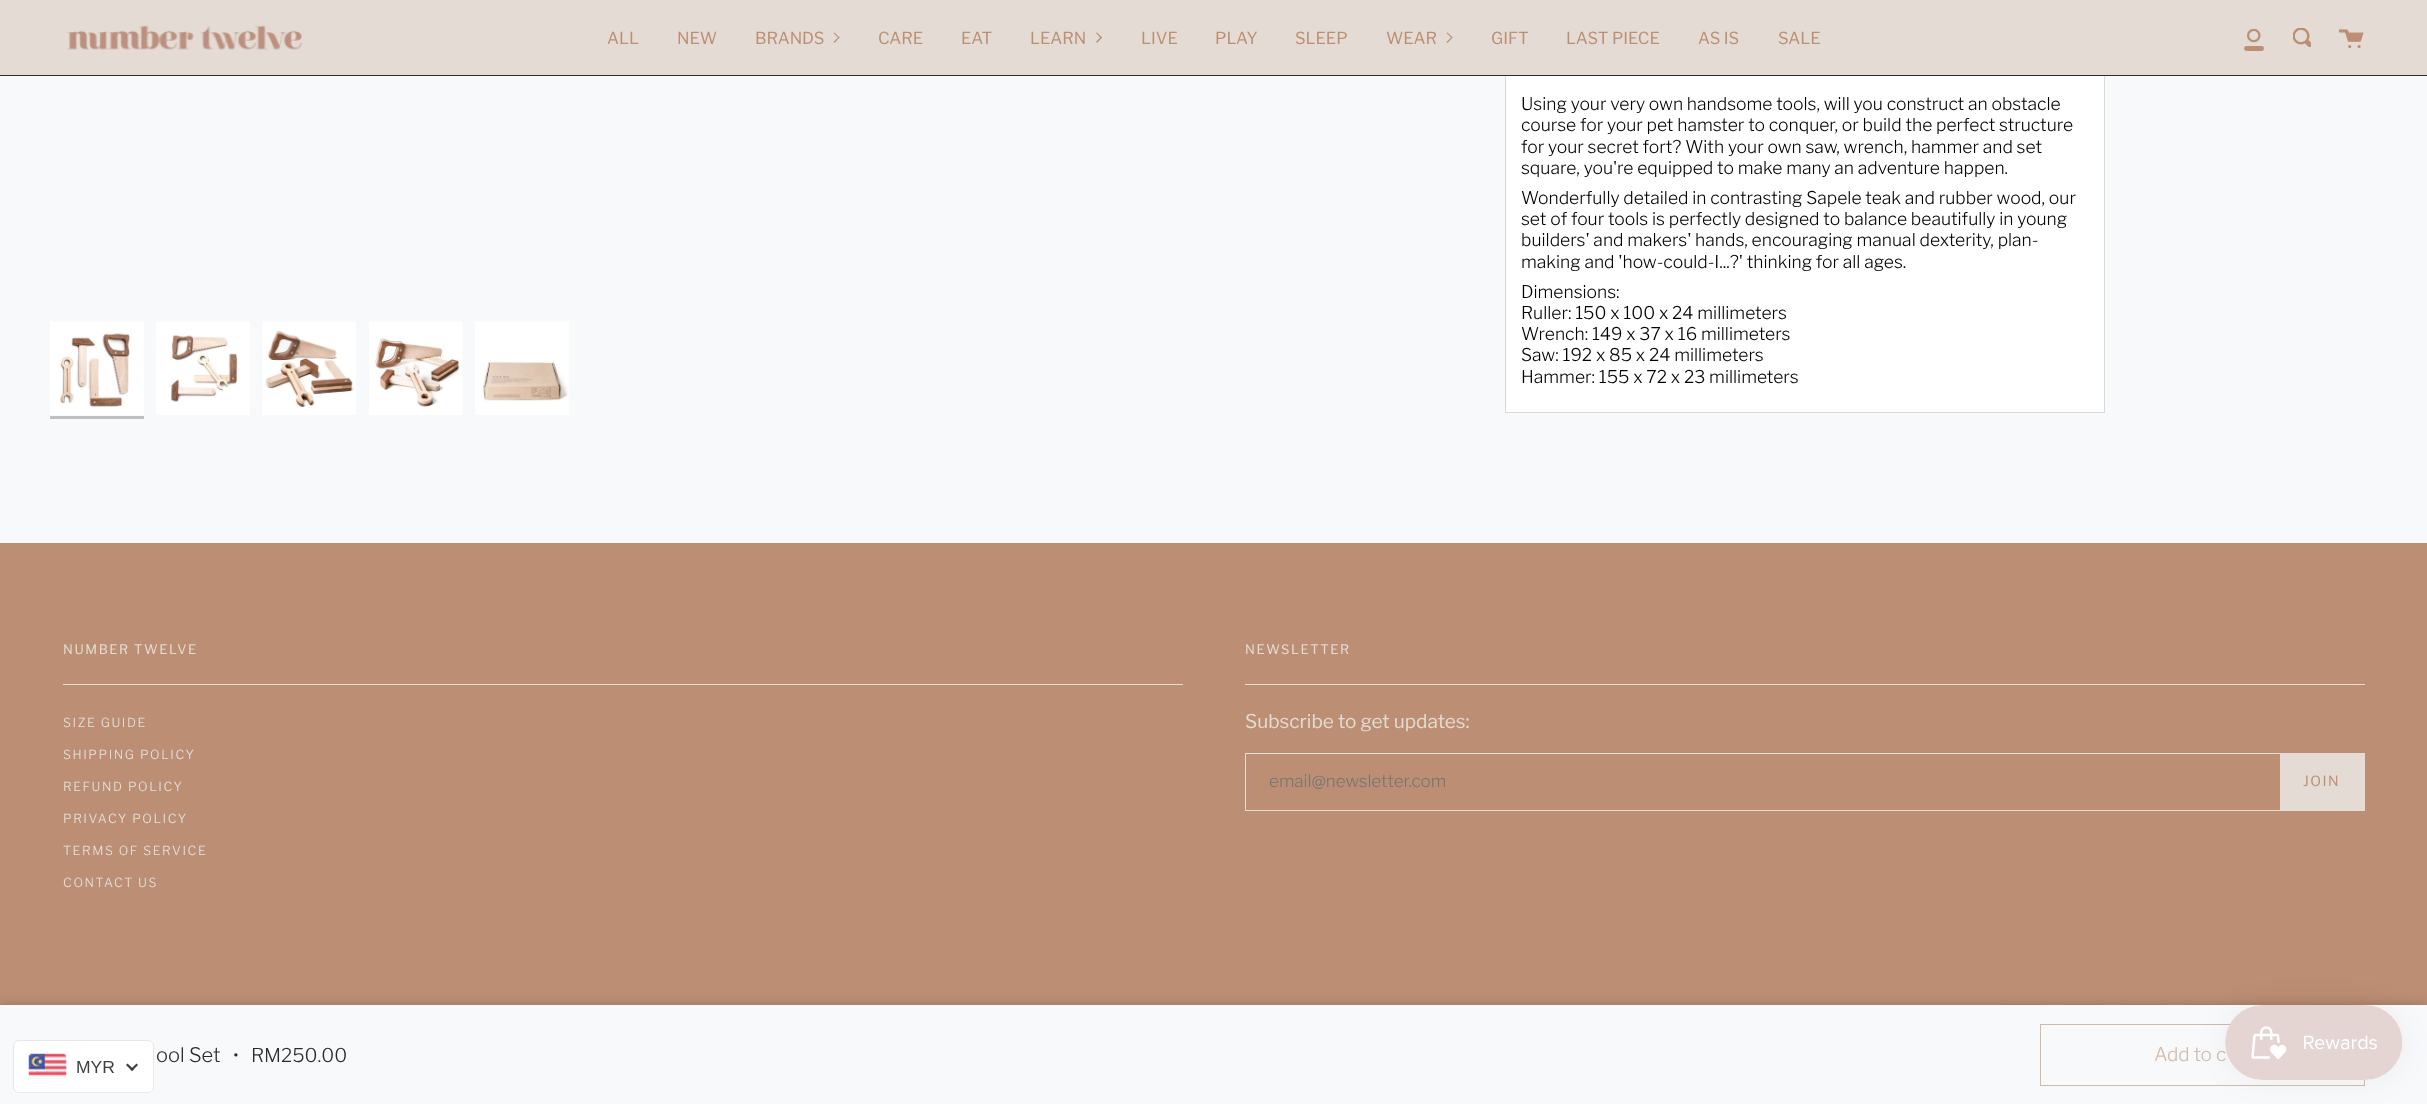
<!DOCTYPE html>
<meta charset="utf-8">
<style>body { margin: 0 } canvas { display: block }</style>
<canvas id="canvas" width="2427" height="1104"></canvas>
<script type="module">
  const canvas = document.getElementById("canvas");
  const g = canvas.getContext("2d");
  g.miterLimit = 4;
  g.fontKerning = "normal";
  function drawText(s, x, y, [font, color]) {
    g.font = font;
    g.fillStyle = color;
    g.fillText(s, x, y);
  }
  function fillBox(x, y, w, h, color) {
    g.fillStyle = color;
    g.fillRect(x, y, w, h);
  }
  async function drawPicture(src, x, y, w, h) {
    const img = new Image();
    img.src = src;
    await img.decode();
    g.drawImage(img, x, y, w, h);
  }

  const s1 = ["16.5px Libre Franklin", "#BC8F74"];
  const s2 = ["300 17.5px Libre Franklin", "#000000"];
  const s3 = ["300 20px Libre Franklin", "#2B2B2B"];
  const s4 = ["300 19px Libre Franklin", "#2B2B2B"];
  const s5 = ["300 19px Libre Franklin", "#D4B9A7"];
  const s6 = ["13px Libre Franklin", "#E4DCD4"];
  const s7 = ["300 12.5px Libre Franklin", "#E1E1E1"];
  const s8 = ["19px Libre Franklin", "#E4DCD4"];
  const s9 = ["300 17.1px Libre Franklin", "#757575"];
  const s10 = ["14px Libre Franklin", "#BC8F74"];
  const s11 = ["17.5px Liberation Sans", "#403F3F"];

  fillBox(0, 0, 2427, 1104, "#F7F9FA");
  fillBox(1506, 76, 598, 336, "#FFFFFF");
  g.strokeStyle = "#D9D9D9";
  g.strokeRect(1505.5, 36.5, 599, 376);
  fillBox(0, 75, 2427, 1, "#2B2B2B");
  fillBox(0, 0, 2427, 75, "#E4DCD4");
  await drawPicture("pic1.png", 67, 25, 235, 25);
  drawText("ALL", 607, 44, s1);
  drawText("NEW", 677, 44, s1);
  drawText("BRANDS", 755, 44, s1);
  g.beginPath();
  g.moveTo(839, 38.5);
  g.lineTo(833.5, 33);
  g.lineTo(834.5, 32.5);
  g.lineTo(839.5, 37.5);
  g.closePath();
  g.fill();
  g.beginPath();
  g.moveTo(834.5, 43);
  g.lineTo(833.5, 42);
  g.lineTo(839, 36.5);
  g.lineTo(839.5, 37.5);
  g.closePath();
  g.fill();
  drawText("CARE", 878, 44, s1);
  drawText("EAT", 961, 44, s1);
  drawText("LEARN", 1030, 44, s1);
  g.beginPath();
  g.moveTo(1101, 38.5);
  g.lineTo(1096, 33);
  g.lineTo(1097, 32.5);
  g.lineTo(1102, 37.5);
  g.closePath();
  g.fill();
  g.beginPath();
  g.moveTo(1097, 43);
  g.lineTo(1096, 42);
  g.lineTo(1101, 36.5);
  g.lineTo(1102, 37.5);
  g.closePath();
  g.fill();
  drawText("LIVE", 1141, 44, s1);
  drawText("PLAY", 1215, 44, s1);
  drawText("SLEEP", 1295, 44, s1);
  drawText("WEAR", 1386, 44, s1);
  g.beginPath();
  g.moveTo(1452, 38.5);
  g.lineTo(1446.5, 33);
  g.lineTo(1447.5, 32.5);
  g.lineTo(1452.5, 37.5);
  g.closePath();
  g.fill();
  g.beginPath();
  g.moveTo(1447.5, 43);
  g.lineTo(1446.5, 42);
  g.lineTo(1452, 36.5);
  g.lineTo(1452.5, 37.5);
  g.closePath();
  g.fill();
  drawText("GIFT", 1491, 44, s1);
  drawText("LAST PIECE", 1566, 44, s1);
  drawText("AS IS", 1698, 44, s1);
  drawText("SALE", 1778, 44, s1);
  await drawPicture("pic2.png", 2244, 29, 20, 22);
  await drawPicture("pic3.png", 2293, 28, 18, 19);
  await drawPicture("pic4.png", 2339, 29, 25, 20);
  await drawPicture("pic5.png", 50, 321, 94, 94);
  fillBox(50, 416, 94, 3, "#C0C0C0");
  await drawPicture("pic6.png", 156, 321, 94, 94);
  await drawPicture("pic7.png", 262, 321, 94, 94);
  await drawPicture("pic8.png", 369, 321, 94, 94);
  await drawPicture("pic9.png", 475, 321, 94, 94);
  drawText("Using your very own handsome tools, will you construct an obstacle", 1521, 110, s2);
  drawText("course for your pet hamster to conquer, or build the perfect structure", 1521, 131, s2);
  drawText("for your secret fort? With your own saw, wrench, hammer and set", 1521, 153, s2);
  drawText("square, you're equipped to make many an adventure happen.", 1521, 174, s2);
  drawText("Wonderfully detailed in contrasting Sapele teak and rubber wood, our", 1521, 204, s2);
  drawText("set of four tools is perfectly designed to balance beautifully in young", 1521, 225, s2);
  drawText("builders' and makers' hands, encouraging manual dexterity, plan-", 1521, 246, s2);
  drawText("making and 'how-could-I...?' thinking for all ages.", 1521, 268, s2);
  drawText("Dimensions:", 1521, 298, s2);
  drawText("Ruller: 150 x 100 x 24 millimeters", 1521, 319, s2);
  drawText("Wrench: 149 x 37 x 16 millimeters", 1521, 340, s2);
  drawText("Saw: 192 x 85 x 24 millimeters", 1521, 361, s2);
  drawText("Hammer: 155 x 72 x 23 millimeters", 1521, 383, s2);
  fillBox(0, 543, 2427, 462, "#BC8F74");
  await drawPicture("pic10.png", 2003, 1004, 39, 1);
  await drawPicture("pic11.png", 2064, 1004, 39, 1);
  await drawPicture("pic12.png", 2125, 1004, 40, 1);
  await drawPicture("pic13.png", 2186, 1004, 40, 1);
  await drawPicture("pic12.png", 2310, 1004, 40, 1);
  g.fillStyle = "rgba(0, 0, 0, 0.2)";
  g.filter = "blur(6px)";
  g.beginPath();
  g.rect(0, 1005, 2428, 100);
  g.fill();
  g.filter = "none";
  fillBox(0, 1005, 2427, 99, "#F7F9FA");
  drawText("ool Set", 156, 1062, s3);
  drawText("•", 233, 1062, s4);
  drawText("RM250.00", 251, 1062, s4);
  g.strokeStyle = "#D4B9A7";
  g.strokeRect(2040.5, 1024.5, 324, 61);
  drawText("Add to c", 2154, 1061, s5);
  g.letterSpacing = "1.6px";
  drawText("NUMBER TWELVE", 63, 654, s6);
  fillBox(63, 684, 1120, 1, "#DDDDDD");
  drawText("SIZE GUIDE", 63, 727, s7);
  drawText("SHIPPING POLICY", 63, 759, s7);
  drawText("REFUND POLICY", 63, 791, s7);
  drawText("PRIVACY POLICY", 63, 823, s7);
  drawText("TERMS OF SERVICE", 63, 855, s7);
  drawText("CONTACT US", 63, 887, s7);
  drawText("NEWSLETTER", 1245, 654, s6);
  fillBox(1245, 684, 1120, 1, "#DDDDDD");
  g.letterSpacing = "0px";
  drawText("Subscribe to get updates:", 1245, 728, s8);
  g.strokeStyle = "#E4DCD4";
  g.strokeRect(1245.5, 753.5, 1119, 57);
  drawText("email@newsletter.com", 1269, 787, s9);
  fillBox(2280, 754, 84, 56, "#E4DCD4");
  g.letterSpacing = "1.5px";
  drawText("JOIN", 2303, 786, s10);
  g.fillStyle = "#FFFFFF";
  g.beginPath();
  g.roundRect(13.5, 1040.5, 140, 52, 5.5);
  g.fill();
  g.strokeStyle = "#E8E8E8";
  g.stroke();
  await drawPicture("pic14.png", 28, 1053, 39, 26);
  g.letterSpacing = "0px";
  drawText("MYR", 76, 1073, s11);
  g.beginPath();
  g.moveTo(136.5, 1063.5);
  g.lineTo(138, 1065);
  g.lineTo(132, 1071);
  g.lineTo(130.5, 1069.5);
  g.closePath();
  g.fill();
  g.beginPath();
  g.moveTo(127.5, 1063.5);
  g.lineTo(134, 1069.5);
  g.lineTo(132, 1071);
  g.lineTo(126, 1065);
  g.closePath();
  g.fill();
  g.fillStyle = "rgba(0, 0, 0, 0.05)";
  g.filter = "blur(15.5px)";
  g.beginPath();
  g.roundRect(2225, 1005, 178, 75, 37.5);
  g.fill();
  g.filter = "none";
  await drawPicture("pic15.png", 2225, 1005, 178, 75);
</script>
